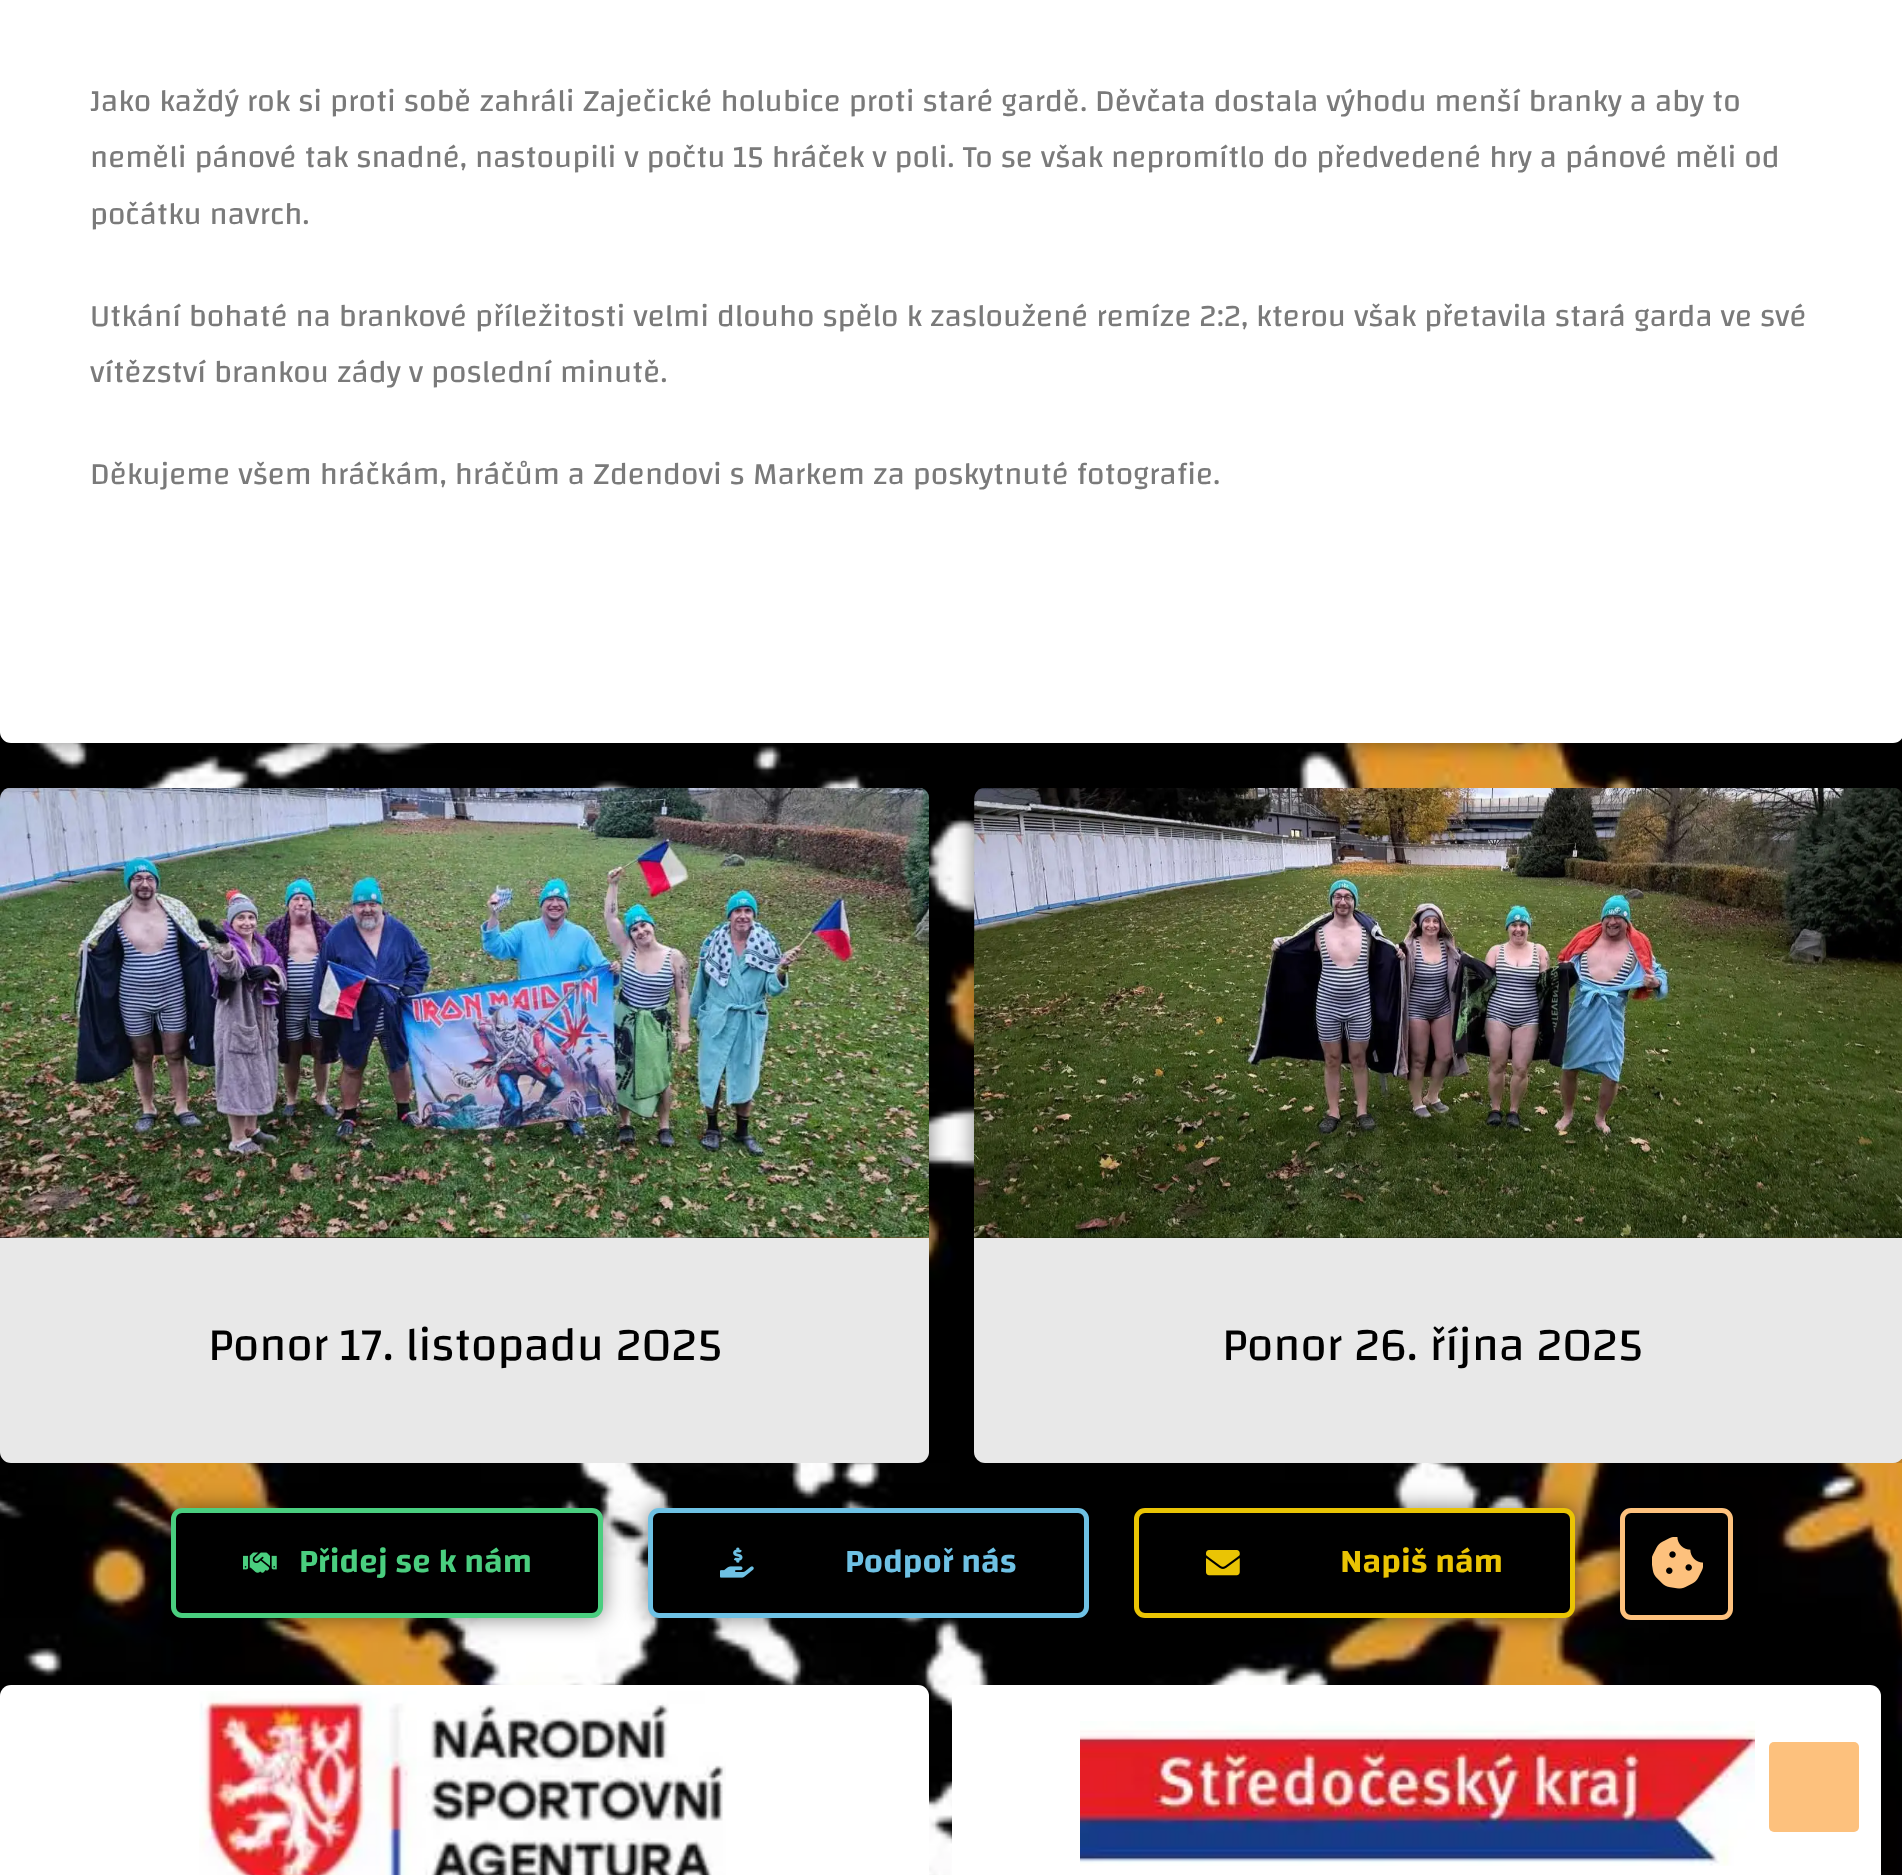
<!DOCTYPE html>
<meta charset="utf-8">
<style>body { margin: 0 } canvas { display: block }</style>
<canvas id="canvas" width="1902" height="1875"></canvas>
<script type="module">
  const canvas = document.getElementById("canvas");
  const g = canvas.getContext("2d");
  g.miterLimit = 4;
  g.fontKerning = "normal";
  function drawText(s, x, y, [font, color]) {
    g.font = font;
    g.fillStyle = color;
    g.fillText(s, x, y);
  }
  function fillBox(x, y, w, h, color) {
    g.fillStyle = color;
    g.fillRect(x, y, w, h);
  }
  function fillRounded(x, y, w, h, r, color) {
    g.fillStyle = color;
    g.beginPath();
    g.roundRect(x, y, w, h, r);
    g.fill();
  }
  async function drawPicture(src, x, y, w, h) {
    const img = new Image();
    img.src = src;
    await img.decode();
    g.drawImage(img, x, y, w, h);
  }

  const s1 = ["31.5px Changa", "#7A7A7A"];
  const s2 = ["47.25px Changa", "#000000"];
  const s3 = ["600 33.75px Changa", "#4ACE7F"];
  const s4 = ["600 33.75px Changa", "#6EC1E4"];
  const s5 = ["600 33.75px Changa", "#EAC404"];

  fillBox(0, 0, 1902, 1875, "#FFFFFF");
  await drawPicture("pic1.png", 0, 732, 1902, 1143);
  g.fillStyle = "rgba(0, 0, 0, 0.5)";
  g.filter = "blur(11px)";
  g.beginPath();
  g.roundRect(0, -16, 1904, 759, 11);
  g.fill();
  g.filter = "none";
  fillRounded(0, -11, 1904, 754, 11, "#FFFFFF");
  drawText("Jako každý rok si proti sobě zahráli Zaječické holubice proti staré gardě. Děvčata dostala výhodu menší branky a aby to", 90, 111, s1);
  drawText("neměli pánové tak snadné, nastoupili v počtu 15 hráček v poli. To se však nepromítlo do předvedené hry a pánové měli od", 90, 167, s1);
  drawText("počátku navrch.", 90, 224, s1);
  drawText("Utkání bohaté na brankové příležitosti velmi dlouho spělo k zasloužené remíze 2:2, kterou však přetavila stará garda ve své", 90, 326, s1);
  drawText("vítězství brankou zády v poslední minutě.", 90, 382, s1);
  drawText("Děkujeme všem hráčkám, hráčům a Zdendovi s Markem za poskytnuté fotografie.", 90, 484, s1);
  g.save();
  g.beginPath();
  g.rect(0, 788, 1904, 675);
  g.clip();
  g.fillStyle = "rgba(0, 0, 0, 0.5)";
  g.filter = "blur(11px)";
  g.beginPath();
  g.roundRect(0, 788, 929, 675, 11);
  g.fill();
  g.filter = "none";
  g.restore();
  await drawPicture("pic2.png", 0, 788, 929, 450);
  g.fillStyle = "#E8E8E8";
  g.beginPath();
  g.roundRect(0, 1238, 929, 225, [0, 0, 11, 11]);
  g.fill();
  drawText("Ponor 17. listopadu 2025", 208, 1360, s2);
  g.save();
  g.beginPath();
  g.rect(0, 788, 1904, 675);
  g.clip();
  g.fillStyle = "rgba(0, 0, 0, 0.5)";
  g.filter = "blur(11px)";
  g.beginPath();
  g.roundRect(974, 788, 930, 675, 11);
  g.fill();
  g.filter = "none";
  g.restore();
  await drawPicture("pic3.png", 974, 788, 928, 450);
  g.fillStyle = "#E8E8E8";
  g.beginPath();
  g.moveTo(974, 1238);
  g.lineTo(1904, 1238);
  g.lineTo(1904, 1452);
  g.bezierCurveTo(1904, 1458, 1899, 1463, 1893, 1463);
  g.lineTo(985, 1463);
  g.bezierCurveTo(979, 1463, 974, 1458, 974, 1452);
  g.closePath();
  g.fill();
  drawText("Ponor 26. října 2025", 1222, 1360, s2);
  g.fillStyle = "rgba(0, 0, 0, 0.5)";
  g.filter = "blur(11px)";
  g.beginPath();
  g.roundRect(171, 1508, 432, 110, 11);
  g.fill();
  g.filter = "none";
  g.fillStyle = "#000000";
  g.beginPath();
  g.roundRect(173.5, 1510.5, 427, 105, 8.5);
  g.fill();
  g.strokeStyle = "#4ACE7F";
  g.lineWidth = 5;
  g.stroke();
  await drawPicture("pic4.png", 243, 1552, 34, 21);
  drawText("Přidej se k nám", 299, 1572, s3);
  g.fillStyle = "rgba(0, 0, 0, 0.5)";
  g.filter = "blur(11px)";
  g.beginPath();
  g.roundRect(648, 1508, 441, 110, 11);
  g.fill();
  g.filter = "none";
  g.fillStyle = "#000000";
  g.beginPath();
  g.roundRect(650.5, 1510.5, 436, 105, 8.5);
  g.fill();
  g.strokeStyle = "#6EC1E4";
  g.stroke();
  await drawPicture("pic5.png", 720, 1547, 34, 31);
  drawText("Podpoř nás", 845, 1572, s4);
  g.fillStyle = "rgba(0, 0, 0, 0.5)";
  g.filter = "blur(11px)";
  g.beginPath();
  g.roundRect(1134, 1508, 441, 110, 11);
  g.fill();
  g.filter = "none";
  g.fillStyle = "#000000";
  g.beginPath();
  g.roundRect(1136.5, 1510.5, 436, 105, 8.5);
  g.fill();
  g.strokeStyle = "#EAC404";
  g.stroke();
  await drawPicture("pic6.png", 1206, 1550, 34, 26);
  drawText("Napiš nám", 1340, 1572, s5);
  g.save();
  g.beginPath();
  g.moveTo(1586, 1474);
  g.lineTo(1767, 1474);
  g.lineTo(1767, 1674);
  g.lineTo(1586, 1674);
  g.closePath();
  g.moveTo(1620, 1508);
  g.lineTo(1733, 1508);
  g.lineTo(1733, 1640);
  g.lineTo(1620, 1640);
  g.closePath();
  g.clip("evenodd");
  g.fillStyle = "rgba(0, 0, 0, 0.5)";
  g.filter = "blur(11px)";
  g.beginPath();
  g.rect(1620, 1508, 113, 132);
  g.fill();
  g.filter = "none";
  g.restore();
  g.fillStyle = "#000000";
  g.beginPath();
  g.roundRect(1622.5, 1510.5, 108, 107, 8.5);
  g.fill();
  g.strokeStyle = "#FDC17D";
  g.stroke();
  await drawPicture("pic7.png", 1652, 1537, 51, 52);
  fillRounded(0, 1685, 929, 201, 11, "#FFFFFF");
  await drawPicture("pic8.png", 199, 1691, 527, 184);
  fillRounded(952, 1685, 929, 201, 11, "#FFFFFF");
  await drawPicture("pic9.png", 1080, 1721, 675, 145);
  fillRounded(1769, 1742, 90, 90, 5, "#FDC17D");
</script>
